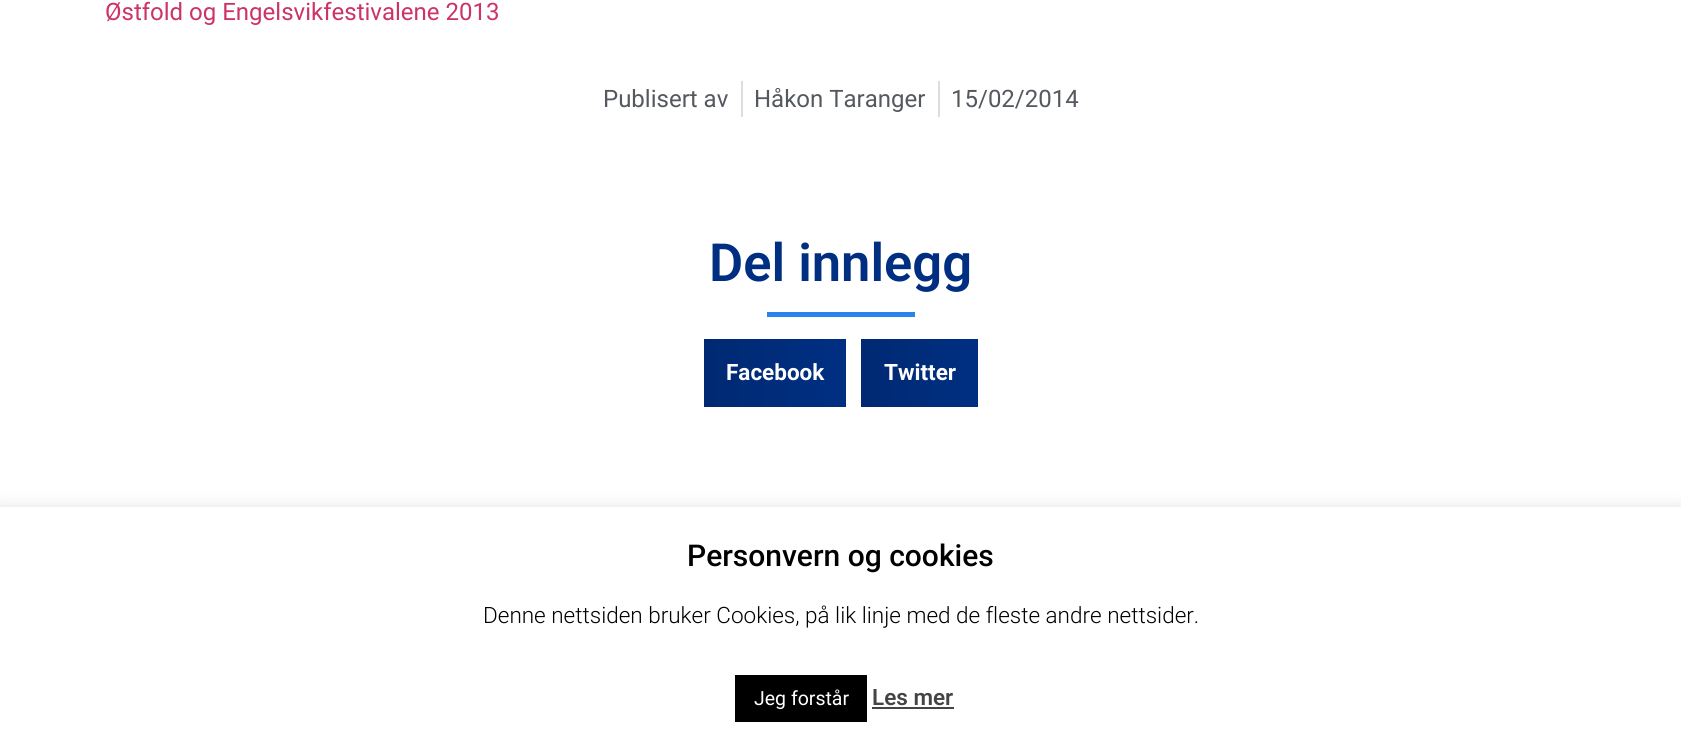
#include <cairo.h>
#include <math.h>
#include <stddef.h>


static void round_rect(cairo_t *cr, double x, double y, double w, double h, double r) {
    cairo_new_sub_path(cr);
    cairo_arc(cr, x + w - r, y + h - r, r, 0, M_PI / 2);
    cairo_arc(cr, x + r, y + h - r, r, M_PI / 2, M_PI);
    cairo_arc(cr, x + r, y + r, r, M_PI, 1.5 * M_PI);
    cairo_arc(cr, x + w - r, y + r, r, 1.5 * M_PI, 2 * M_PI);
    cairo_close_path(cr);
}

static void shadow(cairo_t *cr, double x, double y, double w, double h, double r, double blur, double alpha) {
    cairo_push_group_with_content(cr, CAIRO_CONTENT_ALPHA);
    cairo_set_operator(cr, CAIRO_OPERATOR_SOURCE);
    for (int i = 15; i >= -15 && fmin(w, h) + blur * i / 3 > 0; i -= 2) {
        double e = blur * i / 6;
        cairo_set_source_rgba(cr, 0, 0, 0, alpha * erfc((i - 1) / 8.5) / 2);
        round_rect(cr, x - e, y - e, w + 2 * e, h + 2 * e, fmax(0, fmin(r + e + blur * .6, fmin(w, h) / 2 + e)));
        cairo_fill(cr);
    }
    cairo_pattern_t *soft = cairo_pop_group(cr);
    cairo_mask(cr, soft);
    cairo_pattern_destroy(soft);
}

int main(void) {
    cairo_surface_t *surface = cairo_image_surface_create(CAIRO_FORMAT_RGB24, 1681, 739);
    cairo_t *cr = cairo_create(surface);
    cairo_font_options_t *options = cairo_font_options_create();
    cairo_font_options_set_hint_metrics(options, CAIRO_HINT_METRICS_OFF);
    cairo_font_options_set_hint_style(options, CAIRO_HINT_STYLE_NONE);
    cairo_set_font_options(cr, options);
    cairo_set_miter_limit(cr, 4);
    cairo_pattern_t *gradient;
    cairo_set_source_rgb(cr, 1, 1, 1);
    cairo_paint(cr);
    cairo_select_font_face(cr, "Roboto", CAIRO_FONT_SLANT_NORMAL, CAIRO_FONT_WEIGHT_NORMAL);
    cairo_set_font_size(cr, 24);
    cairo_set_source_rgb(cr, 0.8, 0.2, 0.4);
    cairo_move_to(cr, 105, 20);
    cairo_show_text(cr, "Østfold og Engelsvikfestivalene 2013");
    cairo_set_source_rgb(cr, 0.329, 0.349, 0.373);
    cairo_move_to(cr, 603, 107);
    cairo_show_text(cr, "Publisert av");
    cairo_set_source_rgb(cr, 0.867, 0.867, 0.867);
    cairo_rectangle(cr, 741, 81, 2, 36);
    cairo_fill(cr);
    cairo_set_source_rgb(cr, 0.329, 0.349, 0.373);
    cairo_move_to(cr, 754, 107);
    cairo_show_text(cr, "Håkon Taranger");
    cairo_set_source_rgb(cr, 0.867, 0.867, 0.867);
    cairo_rectangle(cr, 938, 81, 2, 36);
    cairo_fill(cr);
    cairo_set_source_rgb(cr, 0.329, 0.349, 0.373);
    cairo_move_to(cr, 951, 107);
    cairo_show_text(cr, "15/02/2014");
    cairo_select_font_face(cr, "Roboto SemiBold", CAIRO_FONT_SLANT_NORMAL, CAIRO_FONT_WEIGHT_NORMAL);
    cairo_set_font_size(cr, 52.5);
    cairo_set_source_rgb(cr, 0, 0.184, 0.51);
    cairo_move_to(cr, 709, 281);
    cairo_show_text(cr, "Del innlegg");
    cairo_set_source_rgb(cr, 0.165, 0.514, 0.929);
    cairo_rectangle(cr, 767, 312, 148, 5);
    cairo_fill(cr);
    gradient = cairo_pattern_create_linear(704, 373, 846, 373);
    cairo_pattern_add_color_stop_rgba(gradient, 0, 0, 0.161, 0.447, 1);
    cairo_pattern_add_color_stop_rgba(gradient, 1, 0, 0.184, 0.51, 1);
    cairo_set_source(cr, gradient);
    cairo_pattern_destroy(gradient);
    cairo_rectangle(cr, 704, 339, 142, 68);
    cairo_fill(cr);
    cairo_select_font_face(cr, "Roboto", CAIRO_FONT_SLANT_NORMAL, CAIRO_FONT_WEIGHT_BOLD);
    cairo_set_font_size(cr, 22.5);
    cairo_set_source_rgb(cr, 1, 1, 1);
    cairo_move_to(cr, 726, 380);
    cairo_show_text(cr, "Facebook");
    gradient = cairo_pattern_create_linear(861, 373, 978, 373);
    cairo_pattern_add_color_stop_rgba(gradient, 0, 0, 0.161, 0.447, 1);
    cairo_pattern_add_color_stop_rgba(gradient, 1, 0, 0.184, 0.51, 1);
    cairo_set_source(cr, gradient);
    cairo_pattern_destroy(gradient);
    cairo_rectangle(cr, 861, 339, 117, 68);
    cairo_fill(cr);
    cairo_set_source_rgb(cr, 1, 1, 1);
    cairo_move_to(cr, 884, 380);
    cairo_show_text(cr, "Twitter");
    cairo_set_source_rgb(cr, 0.675, 0.671, 0.671);
    shadow(cr, 0, 506, 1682, 232, 0, 7.5, 0.3);
    cairo_set_source_rgb(cr, 1, 1, 1);
    cairo_rectangle(cr, 0, 507, 1681, 232);
    cairo_fill(cr);
    cairo_select_font_face(cr, "Roboto Medium", CAIRO_FONT_SLANT_NORMAL, CAIRO_FONT_WEIGHT_NORMAL);
    cairo_set_font_size(cr, 30);
    cairo_set_source_rgb(cr, 0, 0, 0);
    cairo_move_to(cr, 687, 566);
    cairo_show_text(cr, "Personvern og cookies");
    cairo_select_font_face(cr, "Roboto Light", CAIRO_FONT_SLANT_NORMAL, CAIRO_FONT_WEIGHT_NORMAL);
    cairo_set_font_size(cr, 22.5);
    cairo_move_to(cr, 483, 623);
    cairo_show_text(cr, "Denne nettsiden bruker Cookies, på lik linje med de fleste andre nettsider.");
    cairo_rectangle(cr, 735, 675, 132, 47);
    cairo_fill(cr);
    cairo_select_font_face(cr, "Roboto", CAIRO_FONT_SLANT_NORMAL, CAIRO_FONT_WEIGHT_NORMAL);
    cairo_set_font_size(cr, 19.5);
    cairo_set_source_rgb(cr, 1, 1, 1);
    cairo_move_to(cr, 754, 705);
    cairo_show_text(cr, "Jeg forstår");
    cairo_select_font_face(cr, "Roboto SemiBold", CAIRO_FONT_SLANT_NORMAL, CAIRO_FONT_WEIGHT_NORMAL);
    cairo_set_font_size(cr, 22.5);
    cairo_set_source_rgb(cr, 0.267, 0.267, 0.267);
    cairo_move_to(cr, 872, 705);
    cairo_show_text(cr, "Les mer");
    cairo_rectangle(cr, 872, 707, 82, 2);
    cairo_fill(cr);
    cairo_surface_write_to_png(surface, "page.png");
    cairo_font_options_destroy(options);
    cairo_destroy(cr);
    cairo_surface_destroy(surface);
    return 0;
}
